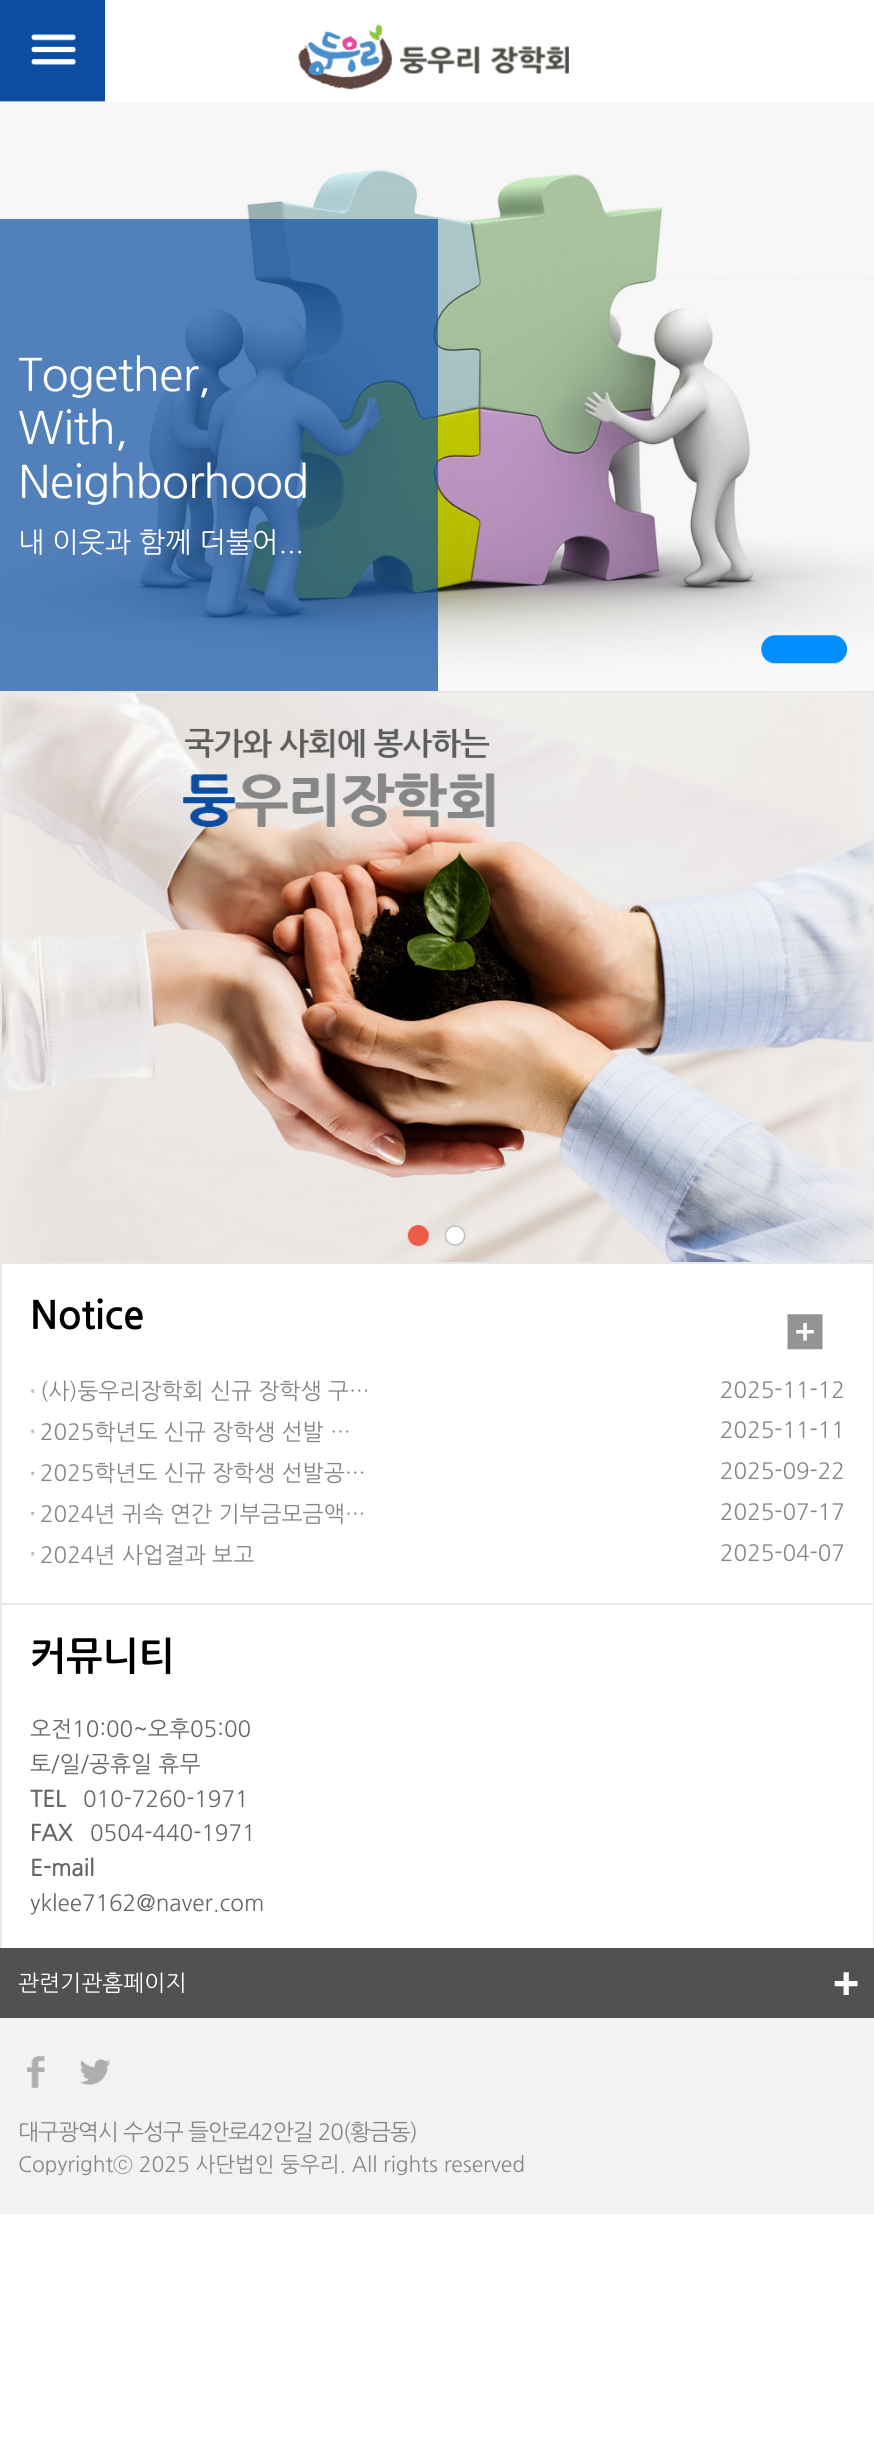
#include <cairo.h>
#include <math.h>
#include <stddef.h>


static void spaced_text(cairo_t *cr, double x, double y, const char *s, double letter, double word) {
    cairo_move_to(cr, x, y);
    while (*s) {
        char ch[5] = {0};
        int n = 0;
        do ch[n++] = *s++; while ((*s & 0xC0) == 0x80);
        cairo_show_text(cr, ch);
        cairo_rel_move_to(cr, letter + word * (*ch == ' '), 0);
    }
}

static void picture(cairo_t *cr, const char *path, double x, double y, double w, double h) {
    cairo_surface_t *image = cairo_image_surface_create_from_png(path);
    cairo_save(cr);
    cairo_set_source_surface(cr, image, x, y);
    cairo_rectangle(cr, x, y, w, h);
    cairo_fill(cr);
    cairo_restore(cr);
    cairo_surface_destroy(image);
}

int main(void) {
    cairo_surface_t *surface = cairo_image_surface_create(CAIRO_FORMAT_RGB24, 874, 2457);
    cairo_t *cr = cairo_create(surface);
    cairo_font_options_t *options = cairo_font_options_create();
    cairo_font_options_set_hint_metrics(options, CAIRO_HINT_METRICS_OFF);
    cairo_font_options_set_hint_style(options, CAIRO_HINT_STYLE_NONE);
    cairo_set_font_options(cr, options);
    cairo_set_miter_limit(cr, 4);
    cairo_set_source_rgb(cr, 1, 1, 1);
    cairo_paint(cr);
    picture(cr, "img1.png", 0, 0, 105, 102);
    picture(cr, "img2.png", 298, 24, 271, 66);
    picture(cr, "img3.png", 0, 101, 874, 590);
    cairo_set_source_rgba(cr, 0.047, 0.302, 0.635, 0.7);
    cairo_rectangle(cr, 0, 219, 438, 472);
    cairo_fill(cr);
    cairo_select_font_face(cr, "NanumGothic", CAIRO_FONT_SLANT_NORMAL, CAIRO_FONT_WEIGHT_NORMAL);
    cairo_set_font_size(cr, 44.75);
    cairo_set_source_rgb(cr, 1, 1, 1);
    spaced_text(cr, 18, 389, "Together,", -0.9, 0);
    spaced_text(cr, 18, 442, "With,", -0.9, 0);
    spaced_text(cr, 18, 496, "Neighborhood", -0.9, 0);
    cairo_set_font_size(cr, 28);
    cairo_move_to(cr, 18, 551);
    cairo_show_text(cr, "내 이웃과 함께 더불어...");
    picture(cr, "img4.png", 761, 635, 86, 29);
    cairo_rectangle(cr, 1, 1263, 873, 341);
    cairo_set_source_rgb(cr, 0.91, 0.91, 0.91);
    cairo_stroke(cr);
    cairo_rectangle(cr, 1, 692, 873, 571);
    cairo_stroke(cr);
    picture(cr, "img5.png", 2, 693, 871, 569);
    picture(cr, "img6.png", 407, 1225, 22, 21);
    picture(cr, "img7.png", 444, 1225, 22, 21);
    cairo_select_font_face(cr, "NanumGothic", CAIRO_FONT_SLANT_NORMAL, CAIRO_FONT_WEIGHT_BOLD);
    cairo_set_font_size(cr, 38.5);
    cairo_set_source_rgb(cr, 0, 0, 0);
    cairo_move_to(cr, 30, 1327);
    cairo_show_text(cr, "Notice");
    picture(cr, "img8.png", 787, 1314, 36, 36);
    picture(cr, "img9.png", 30, 1389, 5, 4);
    cairo_select_font_face(cr, "NanumGothic", CAIRO_FONT_SLANT_NORMAL, CAIRO_FONT_WEIGHT_NORMAL);
    cairo_set_font_size(cr, 22.4);
    cairo_set_source_rgb(cr, 0.525, 0.525, 0.525);
    cairo_move_to(cr, 40, 1398);
    cairo_show_text(cr, "(사)둥우리장학회 신규 장학생 구…");
    cairo_move_to(cr, 720, 1397);
    cairo_show_text(cr, "2025-11-12");
    picture(cr, "img10.png", 30, 1429, 5, 5);
    cairo_move_to(cr, 40, 1439);
    cairo_show_text(cr, "2025학년도 신규 장학생 선발 …");
    cairo_move_to(cr, 720, 1437);
    cairo_show_text(cr, "2025-11-11");
    picture(cr, "img10.png", 30, 1471, 5, 5);
    cairo_move_to(cr, 40, 1480);
    cairo_show_text(cr, "2025학년도 신규 장학생 선발공…");
    cairo_move_to(cr, 720, 1478);
    cairo_show_text(cr, "2025-09-22");
    picture(cr, "img11.png", 30, 1512, 5, 4);
    cairo_move_to(cr, 40, 1521);
    cairo_show_text(cr, "2024년 귀속 연간 기부금모금액…");
    cairo_move_to(cr, 720, 1519);
    cairo_show_text(cr, "2025-07-17");
    picture(cr, "img12.png", 30, 1552, 5, 4);
    cairo_move_to(cr, 40, 1562);
    cairo_show_text(cr, "2024년 사업결과 보고");
    cairo_move_to(cr, 720, 1560);
    cairo_show_text(cr, "2025-04-07");
    cairo_rectangle(cr, 1, 1604, 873, 345);
    cairo_set_source_rgb(cr, 0.91, 0.91, 0.91);
    cairo_stroke(cr);
    cairo_select_font_face(cr, "NanumGothic", CAIRO_FONT_SLANT_NORMAL, CAIRO_FONT_WEIGHT_BOLD);
    cairo_set_font_size(cr, 38.5);
    cairo_set_source_rgb(cr, 0, 0, 0);
    cairo_move_to(cr, 30, 1668);
    cairo_show_text(cr, "커뮤니티");
    cairo_select_font_face(cr, "NanumGothic", CAIRO_FONT_SLANT_NORMAL, CAIRO_FONT_WEIGHT_NORMAL);
    cairo_set_font_size(cr, 22.4);
    cairo_set_source_rgb(cr, 0.4, 0.4, 0.4);
    cairo_move_to(cr, 30, 1736);
    cairo_show_text(cr, "오전10:00~오후05:00");
    cairo_move_to(cr, 30, 1771);
    cairo_show_text(cr, "토/일/공휴일 휴무");
    cairo_select_font_face(cr, "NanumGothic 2", CAIRO_FONT_SLANT_NORMAL, CAIRO_FONT_WEIGHT_BOLD);
    cairo_move_to(cr, 30, 1806);
    cairo_show_text(cr, "TEL");
    cairo_select_font_face(cr, "NanumGothic", CAIRO_FONT_SLANT_NORMAL, CAIRO_FONT_WEIGHT_NORMAL);
    cairo_move_to(cr, 83, 1806);
    cairo_show_text(cr, "010-7260-1971");
    cairo_select_font_face(cr, "NanumGothic 2", CAIRO_FONT_SLANT_NORMAL, CAIRO_FONT_WEIGHT_BOLD);
    cairo_move_to(cr, 30, 1840);
    cairo_show_text(cr, "FAX");
    cairo_select_font_face(cr, "NanumGothic", CAIRO_FONT_SLANT_NORMAL, CAIRO_FONT_WEIGHT_NORMAL);
    cairo_move_to(cr, 90, 1840);
    cairo_show_text(cr, "0504-440-1971");
    cairo_select_font_face(cr, "NanumGothic 2", CAIRO_FONT_SLANT_NORMAL, CAIRO_FONT_WEIGHT_BOLD);
    cairo_move_to(cr, 30, 1875);
    cairo_show_text(cr, "E-mail");
    cairo_select_font_face(cr, "NanumGothic", CAIRO_FONT_SLANT_NORMAL, CAIRO_FONT_WEIGHT_NORMAL);
    cairo_move_to(cr, 30, 1910);
    cairo_show_text(cr, "yklee7162@naver.com");
    cairo_set_source_rgb(cr, 0.949, 0.949, 0.949);
    cairo_rectangle(cr, 0, 2018, 874, 196);
    cairo_fill(cr);
    cairo_set_source_rgb(cr, 0.318, 0.318, 0.318);
    cairo_rectangle(cr, 0, 1948, 874, 70);
    cairo_fill(cr);
    picture(cr, "img13.png", 834, 1972, 24, 23);
    cairo_set_source_rgb(cr, 1, 1, 1);
    cairo_move_to(cr, 18, 1990);
    cairo_show_text(cr, "관련기관홈페이지");
    picture(cr, "img14.png", 27, 2056, 18, 32);
    picture(cr, "img15.png", 80, 2059, 31, 26);
    cairo_set_source_rgb(cr, 0.525, 0.525, 0.525);
    spaced_text(cr, 18, 2139, "대구광역시 수성구 들안로42안길 20(황금동)", -1.1, 0);
    cairo_set_font_size(cr, 21);
    cairo_move_to(cr, 18, 2171);
    cairo_show_text(cr, "Copyrightⓒ 2025 사단법인 둥우리. All rights reserved");
    cairo_surface_write_to_png(surface, "page.png");
    cairo_font_options_destroy(options);
    cairo_destroy(cr);
    cairo_surface_destroy(surface);
    return 0;
}
